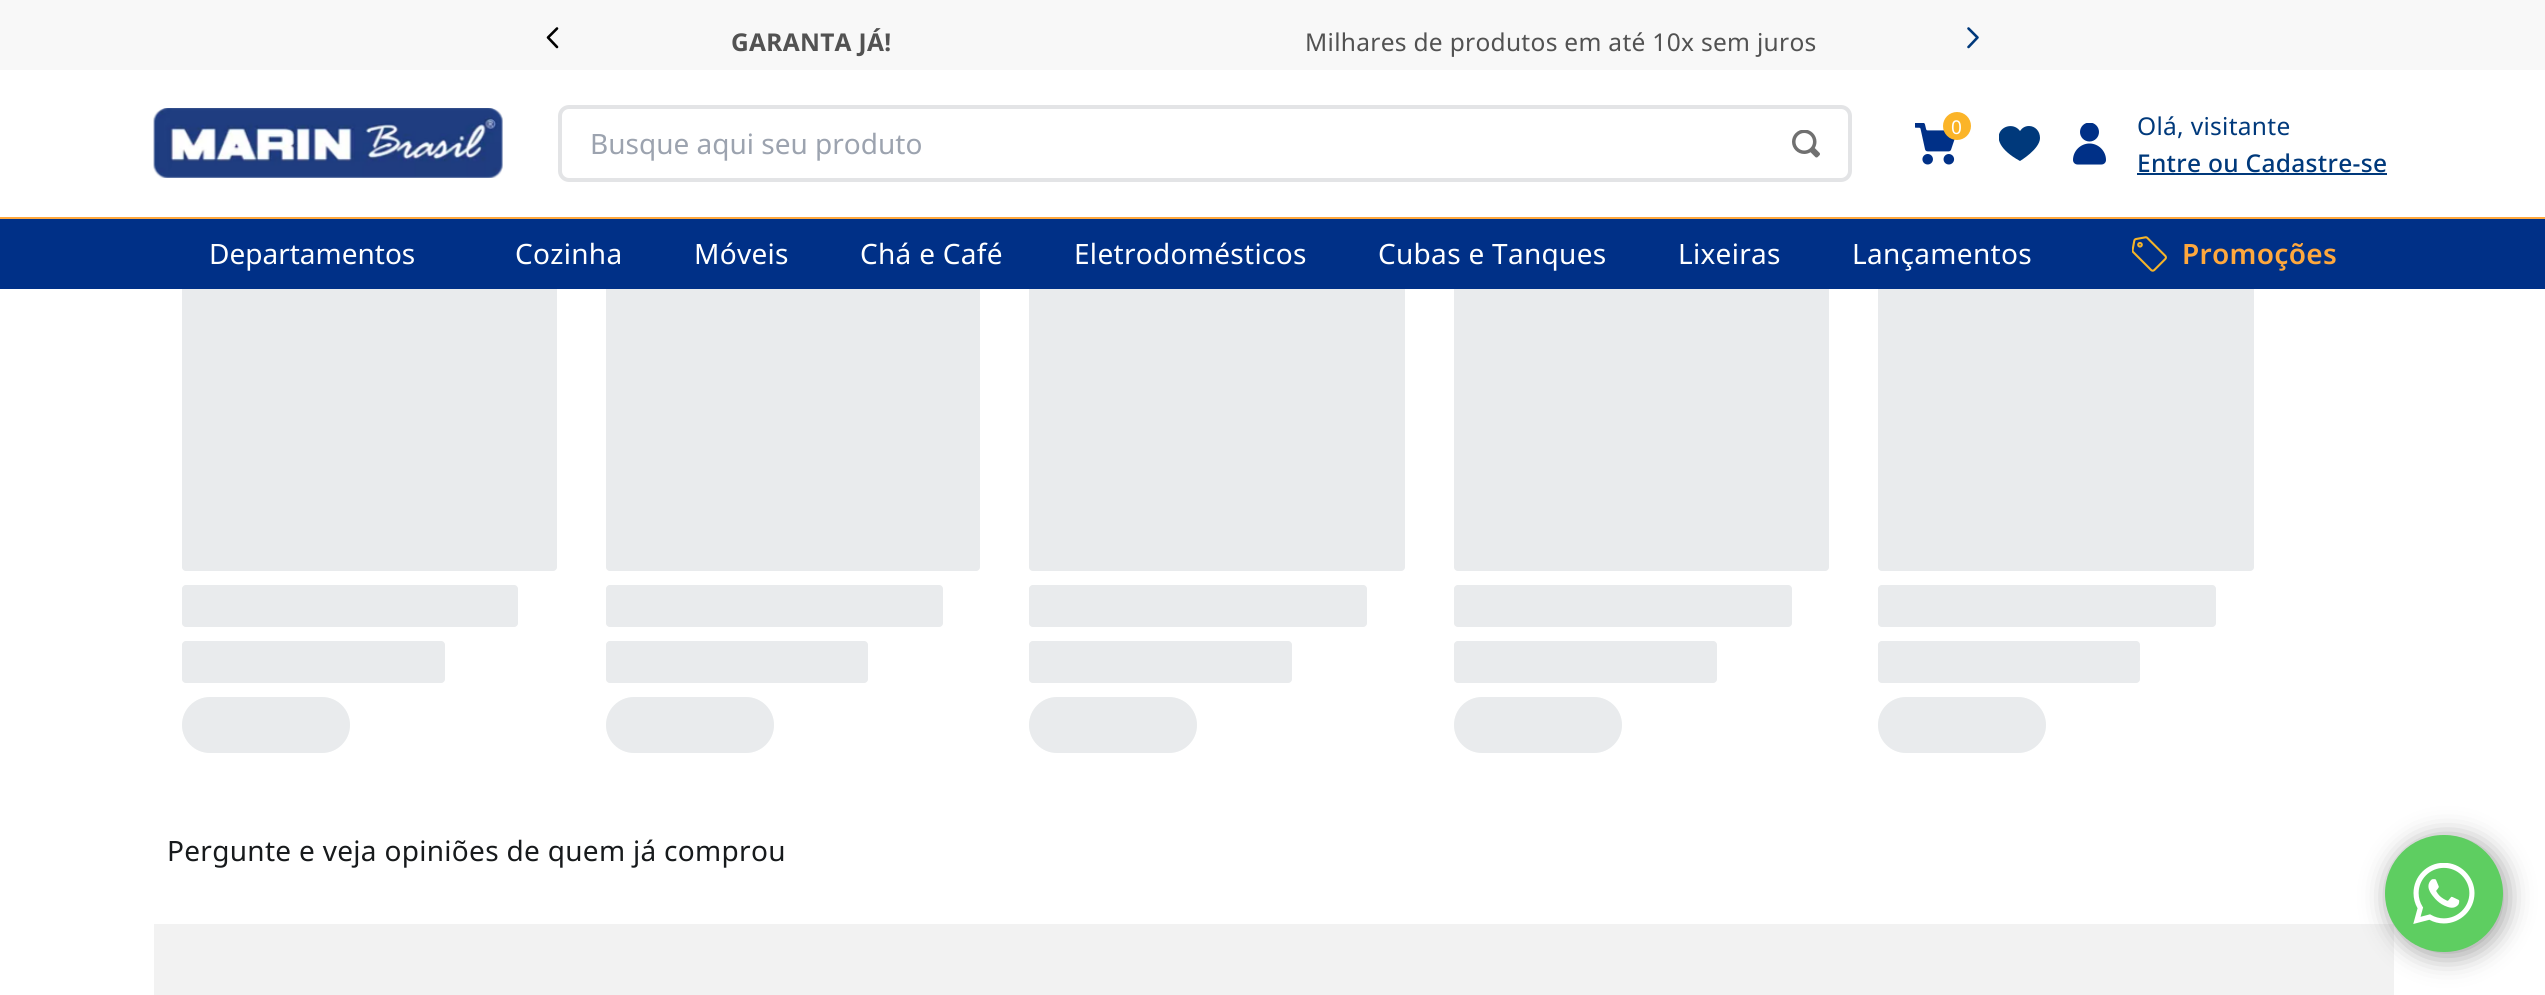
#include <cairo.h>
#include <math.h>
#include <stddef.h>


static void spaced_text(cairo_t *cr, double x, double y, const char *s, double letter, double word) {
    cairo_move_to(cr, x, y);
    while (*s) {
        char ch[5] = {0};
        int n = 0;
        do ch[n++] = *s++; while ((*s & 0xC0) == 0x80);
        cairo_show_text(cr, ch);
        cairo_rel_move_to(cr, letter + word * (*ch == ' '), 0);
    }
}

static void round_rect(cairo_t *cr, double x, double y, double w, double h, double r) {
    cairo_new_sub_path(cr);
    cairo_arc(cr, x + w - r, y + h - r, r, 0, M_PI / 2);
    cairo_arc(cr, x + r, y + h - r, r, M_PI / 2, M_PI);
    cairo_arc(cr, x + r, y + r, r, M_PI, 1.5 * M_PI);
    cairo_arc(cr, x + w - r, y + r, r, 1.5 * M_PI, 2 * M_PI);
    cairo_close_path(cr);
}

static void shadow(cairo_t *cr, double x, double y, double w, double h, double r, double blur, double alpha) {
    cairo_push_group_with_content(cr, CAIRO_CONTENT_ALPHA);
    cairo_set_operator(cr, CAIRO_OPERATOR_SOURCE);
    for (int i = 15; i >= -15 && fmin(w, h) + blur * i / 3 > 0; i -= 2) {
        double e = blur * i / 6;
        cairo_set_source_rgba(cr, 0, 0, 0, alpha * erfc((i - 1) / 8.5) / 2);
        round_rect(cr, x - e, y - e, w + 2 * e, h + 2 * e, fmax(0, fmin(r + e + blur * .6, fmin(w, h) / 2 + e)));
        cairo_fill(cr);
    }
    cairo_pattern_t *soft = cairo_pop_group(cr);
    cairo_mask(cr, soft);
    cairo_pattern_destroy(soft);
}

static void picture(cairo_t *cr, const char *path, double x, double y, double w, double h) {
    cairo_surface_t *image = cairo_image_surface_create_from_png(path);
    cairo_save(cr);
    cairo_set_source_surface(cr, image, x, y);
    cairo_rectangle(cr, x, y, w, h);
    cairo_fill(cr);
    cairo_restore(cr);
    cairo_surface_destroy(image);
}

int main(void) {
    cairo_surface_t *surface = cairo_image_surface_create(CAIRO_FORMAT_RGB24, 2545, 995);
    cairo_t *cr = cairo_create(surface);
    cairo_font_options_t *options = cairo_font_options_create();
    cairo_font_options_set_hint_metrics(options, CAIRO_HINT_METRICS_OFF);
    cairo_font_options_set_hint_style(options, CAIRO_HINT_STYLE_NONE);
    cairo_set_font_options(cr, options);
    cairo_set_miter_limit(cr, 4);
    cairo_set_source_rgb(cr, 1, 1, 1);
    cairo_paint(cr);
    cairo_set_source_rgb(cr, 0.969, 0.969, 0.969);
    cairo_rectangle(cr, 0, 0, 2545, 70);
    cairo_fill(cr);
    cairo_new_path(cr);
    cairo_move_to(cr, 557, 28.5);
    cairo_line_to(cr, 548, 37.5);
    cairo_line_to(cr, 557, 47);
    cairo_set_source_rgb(cr, 0, 0, 0);
    cairo_set_line_width(cr, 2.6);
    cairo_set_line_cap(cr, CAIRO_LINE_CAP_ROUND);
    cairo_set_line_join(cr, CAIRO_LINE_JOIN_ROUND);
    cairo_stroke(cr);
    cairo_select_font_face(cr, "Noto Sans", CAIRO_FONT_SLANT_NORMAL, CAIRO_FONT_WEIGHT_BOLD);
    cairo_set_font_size(cr, 24.5);
    cairo_set_source_rgb(cr, 0.322, 0.322, 0.322);
    spaced_text(cr, 731, 51, "GARANTA JÁ!", 0.3, 0);
    cairo_select_font_face(cr, "Noto Sans", CAIRO_FONT_SLANT_NORMAL, CAIRO_FONT_WEIGHT_NORMAL);
    spaced_text(cr, 1305, 51, "Milhares de produtos em até 10x sem juros", 0.3, 0);
    cairo_new_path(cr);
    cairo_move_to(cr, 1968.5, 47);
    cairo_line_to(cr, 1977.5, 37.5);
    cairo_line_to(cr, 1968.5, 28.5);
    cairo_set_source_rgb(cr, 0, 0.224, 0.482);
    cairo_stroke(cr);
    cairo_set_source_rgb(cr, 0.89, 0.902, 0.91);
    round_rect(cr, 182, 196, 375, 375, 4);
    cairo_fill(cr);
    cairo_set_source_rgba(cr, 1, 1, 1, 0.2);
    round_rect(cr, 182, 196, 375, 375, 4);
    cairo_fill(cr);
    cairo_set_source_rgb(cr, 0.89, 0.902, 0.91);
    round_rect(cr, 606, 196, 374, 375, 4);
    cairo_fill(cr);
    cairo_set_source_rgba(cr, 1, 1, 1, 0.2);
    round_rect(cr, 606, 196, 374, 375, 4);
    cairo_fill(cr);
    cairo_set_source_rgb(cr, 0.89, 0.902, 0.91);
    round_rect(cr, 1029, 196, 376, 375, 4);
    cairo_fill(cr);
    cairo_set_source_rgba(cr, 1, 1, 1, 0.2);
    round_rect(cr, 1029, 196, 376, 375, 4);
    cairo_fill(cr);
    cairo_set_source_rgb(cr, 0.89, 0.902, 0.91);
    round_rect(cr, 1454, 196, 375, 375, 4);
    cairo_fill(cr);
    cairo_set_source_rgba(cr, 1, 1, 1, 0.2);
    round_rect(cr, 1454, 196, 375, 375, 4);
    cairo_fill(cr);
    cairo_set_source_rgb(cr, 0.89, 0.902, 0.91);
    round_rect(cr, 1878, 196, 376, 375, 4);
    cairo_fill(cr);
    cairo_set_source_rgba(cr, 1, 1, 1, 0.2);
    round_rect(cr, 1878, 196, 376, 375, 4);
    cairo_fill(cr);
    cairo_set_source_rgb(cr, 1, 1, 1);
    cairo_rectangle(cr, 182, 196, 2072, 21);
    cairo_fill(cr);
    picture(cr, "img1.png", 153, 108, 350, 70);
    round_rect(cr, 560, 107, 1290, 73, 9);
    cairo_set_source_rgb(cr, 0.89, 0.894, 0.902);
    cairo_set_line_width(cr, 4);
    cairo_set_line_cap(cr, CAIRO_LINE_CAP_BUTT);
    cairo_set_line_join(cr, CAIRO_LINE_JOIN_MITER);
    cairo_stroke(cr);
    cairo_set_font_size(cr, 28);
    cairo_set_source_rgb(cr, 0.612, 0.639, 0.686);
    cairo_move_to(cr, 590, 154);
    cairo_show_text(cr, "Busque aqui seu produto");
    picture(cr, "img2.png", 1792, 130, 28, 28);
    picture(cr, "img3.png", 1915, 123, 40, 42);
    cairo_set_source_rgb(cr, 0.984, 0.706, 0.157);
    cairo_arc(cr, 1957, 126, 14, 0, 2 * M_PI);
    cairo_fill(cr);
    cairo_set_font_size(cr, 19);
    cairo_set_source_rgb(cr, 1, 1, 1);
    cairo_move_to(cr, 1951, 134);
    cairo_show_text(cr, "0");
    cairo_save(cr);
    cairo_rectangle(cr, 1999, 123, 42, 42);
    cairo_clip(cr);
    cairo_set_source_rgb(cr, 0, 0.224, 0.482);
    cairo_new_path(cr);
    cairo_move_to(cr, 2029, 126);
    cairo_curve_to(cr, 2035, 126, 2040, 131, 2040, 138);
    cairo_curve_to(cr, 2040, 149, 2020, 161, 2020, 161);
    cairo_curve_to(cr, 1978, 138, 2009, 116, 2020, 131);
    cairo_curve_to(cr, 2022, 128, 2025, 126, 2029, 126);
    cairo_close_path(cr);
    cairo_fill(cr);
    cairo_restore(cr);
    cairo_save(cr);
    cairo_rectangle(cr, 2069, 123, 42, 42);
    cairo_clip(cr);
    cairo_set_source_rgb(cr, 0, 0.188, 0.529);
    cairo_arc(cr, 2089.5, 132, 9.5, 0, 2 * M_PI);
    cairo_fill(cr);
    cairo_restore(cr);
    cairo_set_source_rgb(cr, 0, 0.188, 0.529);
    cairo_new_path(cr);
    cairo_move_to(cr, 2089.5, 143.5);
    cairo_curve_to(cr, 2080.5, 143.5, 2073, 151, 2073, 160);
    cairo_curve_to(cr, 2073, 162.5, 2075, 164.5, 2077.5, 164.5);
    cairo_line_to(cr, 2101.5, 164.5);
    cairo_curve_to(cr, 2104, 164.5, 2106, 162.5, 2106, 160);
    cairo_curve_to(cr, 2106, 151, 2098.5, 143.5, 2089.5, 143.5);
    cairo_close_path(cr);
    cairo_fill(cr);
    cairo_set_font_size(cr, 24.5);
    cairo_set_source_rgb(cr, 0, 0.224, 0.482);
    spaced_text(cr, 2137, 135, "Olá, visitante", 0.3, 0);
    cairo_select_font_face(cr, "Noto Sans Medium", CAIRO_FONT_SLANT_NORMAL, CAIRO_FONT_WEIGHT_NORMAL);
    spaced_text(cr, 2137, 172, "Entre ou Cadastre-se", 0.3, 0);
    cairo_rectangle(cr, 2137, 173, 250, 2);
    cairo_fill(cr);
    cairo_set_source_rgb(cr, 0, 0.188, 0.529);
    cairo_rectangle(cr, 0, 219, 2545, 70);
    cairo_fill(cr);
    cairo_set_source_rgb(cr, 1, 0.659, 0.239);
    cairo_rectangle(cr, 0, 217, 2545, 2);
    cairo_fill(cr);
    cairo_select_font_face(cr, "Noto Sans", CAIRO_FONT_SLANT_NORMAL, CAIRO_FONT_WEIGHT_NORMAL);
    cairo_set_font_size(cr, 28);
    cairo_set_source_rgb(cr, 1, 1, 1);
    cairo_move_to(cr, 209, 264);
    cairo_show_text(cr, "Departamentos");
    spaced_text(cr, 515, 264, "Cozinha", 0.3, 0);
    spaced_text(cr, 694, 264, "Móveis", 0.3, 0);
    spaced_text(cr, 860, 264, "Chá e Café", 0.3, 0);
    spaced_text(cr, 1074, 264, "Eletrodomésticos", 0.3, 0);
    spaced_text(cr, 1378, 264, "Cubas e Tanques", 0.3, 0);
    spaced_text(cr, 1678, 264, "Lixeiras", 0.3, 0);
    spaced_text(cr, 1852, 264, "Lançamentos", 0.3, 0);
    picture(cr, "img4.png", 2132, 236, 35, 36);
    cairo_select_font_face(cr, "Noto Sans SemiBold", CAIRO_FONT_SLANT_NORMAL, CAIRO_FONT_WEIGHT_NORMAL);
    cairo_set_source_rgb(cr, 1, 0.659, 0.239);
    spaced_text(cr, 2182, 264, "Promoções", 0.3, 0);
    cairo_set_source_rgb(cr, 0.89, 0.902, 0.91);
    round_rect(cr, 182, 585, 336, 42, 4);
    cairo_fill(cr);
    cairo_set_source_rgba(cr, 1, 1, 1, 0.2);
    round_rect(cr, 182, 585, 336, 42, 4);
    cairo_fill(cr);
    cairo_set_source_rgb(cr, 0.89, 0.902, 0.91);
    round_rect(cr, 182, 641, 263, 42, 4);
    cairo_fill(cr);
    cairo_set_source_rgba(cr, 1, 1, 1, 0.2);
    round_rect(cr, 182, 641, 263, 42, 4);
    cairo_fill(cr);
    cairo_set_source_rgb(cr, 0.89, 0.902, 0.91);
    round_rect(cr, 182, 697, 168, 56, 28);
    cairo_fill(cr);
    cairo_set_source_rgba(cr, 1, 1, 1, 0.2);
    round_rect(cr, 182, 697, 168, 56, 28);
    cairo_fill(cr);
    cairo_set_source_rgb(cr, 0.89, 0.902, 0.91);
    round_rect(cr, 606, 585, 337, 42, 4);
    cairo_fill(cr);
    cairo_set_source_rgba(cr, 1, 1, 1, 0.2);
    round_rect(cr, 606, 585, 337, 42, 4);
    cairo_fill(cr);
    cairo_set_source_rgb(cr, 0.89, 0.902, 0.91);
    round_rect(cr, 606, 641, 262, 42, 4);
    cairo_fill(cr);
    cairo_set_source_rgba(cr, 1, 1, 1, 0.2);
    round_rect(cr, 606, 641, 262, 42, 4);
    cairo_fill(cr);
    cairo_set_source_rgb(cr, 0.89, 0.902, 0.91);
    round_rect(cr, 606, 697, 168, 56, 28);
    cairo_fill(cr);
    cairo_set_source_rgba(cr, 1, 1, 1, 0.2);
    round_rect(cr, 606, 697, 168, 56, 28);
    cairo_fill(cr);
    cairo_set_source_rgb(cr, 0.89, 0.902, 0.91);
    round_rect(cr, 1029, 585, 338, 42, 4);
    cairo_fill(cr);
    cairo_set_source_rgba(cr, 1, 1, 1, 0.2);
    round_rect(cr, 1029, 585, 338, 42, 4);
    cairo_fill(cr);
    cairo_set_source_rgb(cr, 0.89, 0.902, 0.91);
    round_rect(cr, 1029, 641, 263, 42, 4);
    cairo_fill(cr);
    cairo_set_source_rgba(cr, 1, 1, 1, 0.2);
    round_rect(cr, 1029, 641, 263, 42, 4);
    cairo_fill(cr);
    cairo_set_source_rgb(cr, 0.89, 0.902, 0.91);
    round_rect(cr, 1029, 697, 168, 56, 28);
    cairo_fill(cr);
    cairo_set_source_rgba(cr, 1, 1, 1, 0.2);
    round_rect(cr, 1029, 697, 168, 56, 28);
    cairo_fill(cr);
    cairo_set_source_rgb(cr, 0.89, 0.902, 0.91);
    round_rect(cr, 1454, 585, 338, 42, 4);
    cairo_fill(cr);
    cairo_set_source_rgba(cr, 1, 1, 1, 0.2);
    round_rect(cr, 1454, 585, 338, 42, 4);
    cairo_fill(cr);
    cairo_set_source_rgb(cr, 0.89, 0.902, 0.91);
    round_rect(cr, 1454, 641, 263, 42, 4);
    cairo_fill(cr);
    cairo_set_source_rgba(cr, 1, 1, 1, 0.2);
    round_rect(cr, 1454, 641, 263, 42, 4);
    cairo_fill(cr);
    cairo_set_source_rgb(cr, 0.89, 0.902, 0.91);
    round_rect(cr, 1454, 697, 168, 56, 28);
    cairo_fill(cr);
    cairo_set_source_rgba(cr, 1, 1, 1, 0.2);
    round_rect(cr, 1454, 697, 168, 56, 28);
    cairo_fill(cr);
    cairo_set_source_rgb(cr, 0.89, 0.902, 0.91);
    round_rect(cr, 1878, 585, 338, 42, 4);
    cairo_fill(cr);
    cairo_set_source_rgba(cr, 1, 1, 1, 0.2);
    round_rect(cr, 1878, 585, 338, 42, 4);
    cairo_fill(cr);
    cairo_set_source_rgb(cr, 0.89, 0.902, 0.91);
    round_rect(cr, 1878, 641, 262, 42, 4);
    cairo_fill(cr);
    cairo_set_source_rgba(cr, 1, 1, 1, 0.2);
    round_rect(cr, 1878, 641, 262, 42, 4);
    cairo_fill(cr);
    cairo_set_source_rgb(cr, 0.89, 0.902, 0.91);
    round_rect(cr, 1878, 697, 168, 56, 28);
    cairo_fill(cr);
    cairo_set_source_rgba(cr, 1, 1, 1, 0.2);
    round_rect(cr, 1878, 697, 168, 56, 28);
    cairo_fill(cr);
    cairo_select_font_face(cr, "Noto Sans", CAIRO_FONT_SLANT_NORMAL, CAIRO_FONT_WEIGHT_NORMAL);
    cairo_set_source_rgb(cr, 0.09, 0.102, 0.11);
    spaced_text(cr, 167, 861, "Pergunte e veja opiniões de quem já comprou", 0.3, 0);
    cairo_set_source_rgb(cr, 0.949, 0.949, 0.949);
    cairo_rectangle(cr, 154, 924, 2240, 71);
    cairo_fill(cr);
    cairo_set_source_rgb(cr, 0.6, 0.6, 0.6);
    shadow(cr, 2389, 838, 117, 118, 58.5, 13, 1);
    cairo_set_source_rgb(cr, 0.369, 0.808, 0.38);
    round_rect(cr, 2385, 835, 118, 117, 58.5);
    cairo_fill(cr);
    picture(cr, "img5.png", 2413, 863, 62, 61);
    cairo_surface_write_to_png(surface, "page.png");
    cairo_font_options_destroy(options);
    cairo_destroy(cr);
    cairo_surface_destroy(surface);
    return 0;
}
